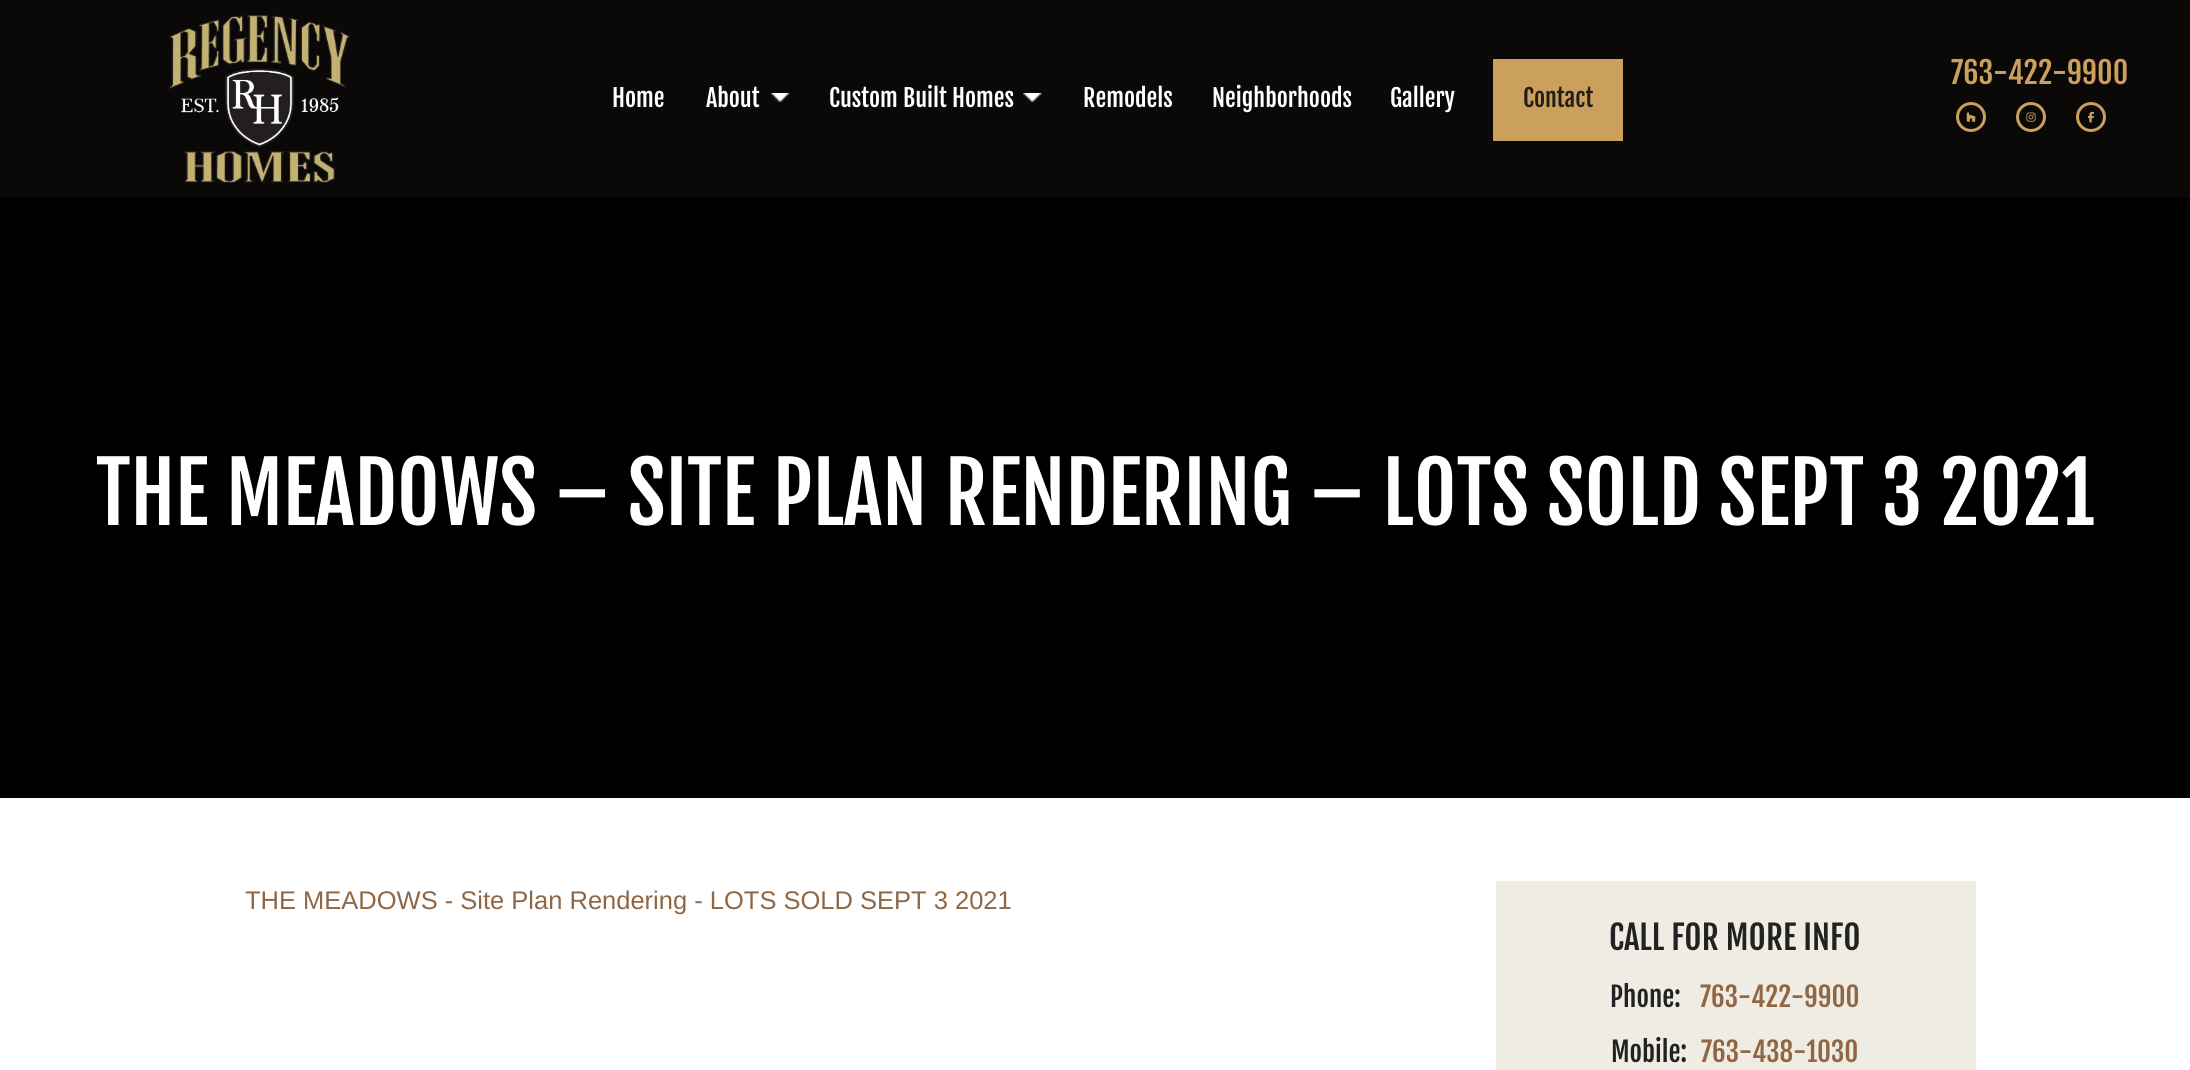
#include <cairo.h>
#include <math.h>
#include <stddef.h>


static void picture(cairo_t *cr, const char *path, double x, double y, double w, double h) {
    cairo_surface_t *image = cairo_image_surface_create_from_png(path);
    cairo_save(cr);
    cairo_set_source_surface(cr, image, x, y);
    cairo_rectangle(cr, x, y, w, h);
    cairo_fill(cr);
    cairo_restore(cr);
    cairo_surface_destroy(image);
}

int main(void) {
    cairo_surface_t *surface = cairo_image_surface_create(CAIRO_FORMAT_RGB24, 2190, 1070);
    cairo_t *cr = cairo_create(surface);
    cairo_font_options_t *options = cairo_font_options_create();
    cairo_font_options_set_hint_metrics(options, CAIRO_HINT_METRICS_OFF);
    cairo_font_options_set_hint_style(options, CAIRO_HINT_STYLE_NONE);
    cairo_set_font_options(cr, options);
    cairo_set_miter_limit(cr, 4);
    cairo_set_source_rgb(cr, 1, 1, 1);
    cairo_paint(cr);
    cairo_set_source_rgb(cr, 0.043, 0.039, 0.035);
    cairo_rectangle(cr, 0, 0, 2190, 198);
    cairo_fill(cr);
    picture(cr, "img1.png", 169, 15, 181, 168);
    cairo_select_font_face(cr, "Fjalla One", CAIRO_FONT_SLANT_NORMAL, CAIRO_FONT_WEIGHT_NORMAL);
    cairo_set_font_size(cr, 30);
    cairo_set_source_rgb(cr, 0.792, 0.627, 0.361);
    cairo_move_to(cr, 1951, 84);
    cairo_show_text(cr, "763-422-9900");
    cairo_new_path(cr);
    cairo_arc(cr, 1971, 117, 13.5, 0, 2 * M_PI);
    cairo_set_line_width(cr, 3);
    cairo_stroke(cr);
    picture(cr, "img2.png", 1966, 112, 10, 10);
    cairo_arc(cr, 2031, 117, 13.5, 0, 2 * M_PI);
    cairo_stroke(cr);
    picture(cr, "img3.png", 2026, 112, 10, 10);
    cairo_arc(cr, 2091, 117, 13.5, 0, 2 * M_PI);
    cairo_stroke(cr);
    picture(cr, "img4.png", 2088, 111, 6, 12);
    cairo_set_font_size(cr, 24);
    cairo_set_source_rgb(cr, 1, 1, 1);
    cairo_move_to(cr, 612, 107);
    cairo_show_text(cr, "Home");
    cairo_move_to(cr, 706, 107);
    cairo_show_text(cr, "About");
    picture(cr, "img5.png", 771, 93, 18, 9);
    cairo_move_to(cr, 829, 107);
    cairo_show_text(cr, "Custom Built Homes");
    picture(cr, "img6.png", 1023, 93, 19, 9);
    cairo_move_to(cr, 1083, 107);
    cairo_show_text(cr, "Remodels");
    cairo_move_to(cr, 1212, 107);
    cairo_show_text(cr, "Neighborhoods");
    cairo_move_to(cr, 1390, 107);
    cairo_show_text(cr, "Gallery");
    cairo_set_source_rgb(cr, 0.792, 0.627, 0.361);
    cairo_rectangle(cr, 1493, 59, 130, 82);
    cairo_fill(cr);
    cairo_set_source_rgb(cr, 0.133, 0.118, 0.09);
    cairo_move_to(cr, 1523, 107);
    cairo_show_text(cr, "Contact");
    cairo_set_source_rgb(cr, 0, 0, 0);
    cairo_rectangle(cr, 0, 198, 2190, 600);
    cairo_fill(cr);
    cairo_set_font_size(cr, 82.5);
    cairo_set_source_rgb(cr, 1, 1, 1);
    cairo_move_to(cr, 96, 525);
    cairo_show_text(cr, "THE MEADOWS – SITE PLAN RENDERING – LOTS SOLD SEPT 3 2021");
    cairo_select_font_face(cr, "Liberation Sans", CAIRO_FONT_SLANT_NORMAL, CAIRO_FONT_WEIGHT_NORMAL);
    cairo_set_font_size(cr, 25.5);
    cairo_set_source_rgb(cr, 0.565, 0.404, 0.267);
    cairo_move_to(cr, 245, 909);
    cairo_show_text(cr, "THE MEADOWS - Site Plan Rendering - LOTS SOLD SEPT 3 2021");
    cairo_set_source_rgb(cr, 0.937, 0.922, 0.894);
    cairo_rectangle(cr, 1496, 881, 480, 189);
    cairo_fill(cr);
    cairo_select_font_face(cr, "Fjalla One", CAIRO_FONT_SLANT_NORMAL, CAIRO_FONT_WEIGHT_NORMAL);
    cairo_set_font_size(cr, 33);
    cairo_set_source_rgb(cr, 0.133, 0.133, 0.133);
    cairo_move_to(cr, 1609, 950);
    cairo_show_text(cr, "CALL FOR MORE INFO");
    cairo_set_font_size(cr, 27);
    cairo_move_to(cr, 1610, 1007);
    cairo_show_text(cr, "Phone:");
    cairo_set_source_rgb(cr, 0.565, 0.404, 0.267);
    cairo_move_to(cr, 1700, 1007);
    cairo_show_text(cr, "763-422-9900");
    cairo_set_source_rgb(cr, 0.133, 0.133, 0.133);
    cairo_move_to(cr, 1611, 1062);
    cairo_show_text(cr, "Mobile:");
    cairo_set_source_rgb(cr, 0.565, 0.404, 0.267);
    cairo_move_to(cr, 1701, 1062);
    cairo_show_text(cr, "763-438-1030");
    cairo_surface_write_to_png(surface, "page.png");
    cairo_font_options_destroy(options);
    cairo_destroy(cr);
    cairo_surface_destroy(surface);
    return 0;
}
